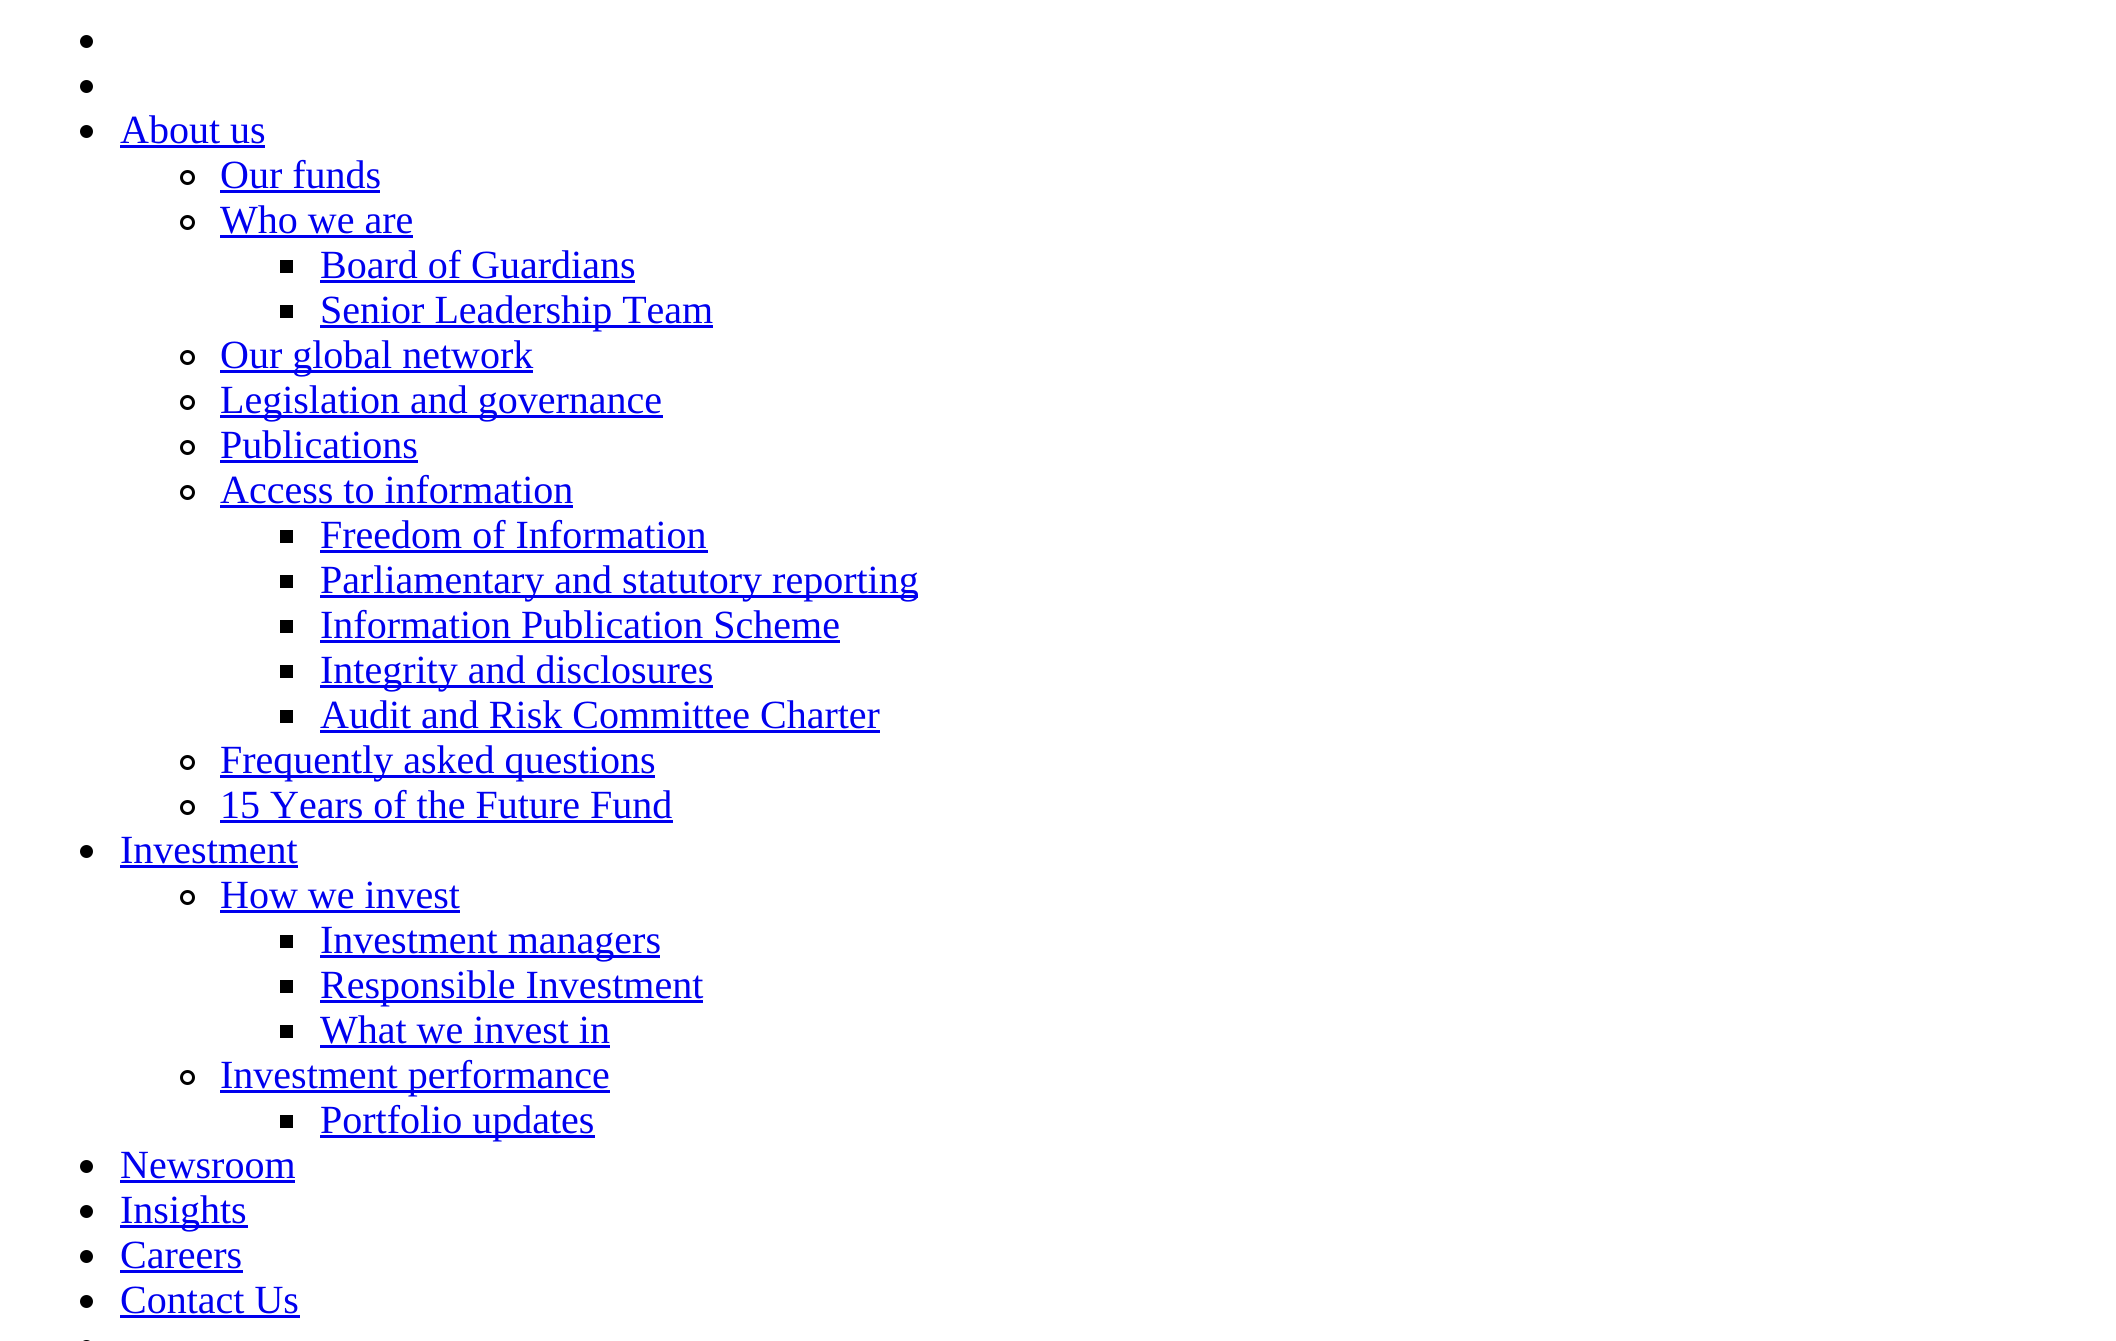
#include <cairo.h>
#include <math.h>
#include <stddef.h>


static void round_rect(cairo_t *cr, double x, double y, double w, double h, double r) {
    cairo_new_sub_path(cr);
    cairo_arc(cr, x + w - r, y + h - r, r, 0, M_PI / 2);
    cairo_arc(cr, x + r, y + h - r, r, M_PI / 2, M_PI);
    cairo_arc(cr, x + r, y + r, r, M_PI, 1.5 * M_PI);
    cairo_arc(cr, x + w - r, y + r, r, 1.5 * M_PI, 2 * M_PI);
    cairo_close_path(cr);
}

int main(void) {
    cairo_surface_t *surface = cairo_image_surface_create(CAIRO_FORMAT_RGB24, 2116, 1341);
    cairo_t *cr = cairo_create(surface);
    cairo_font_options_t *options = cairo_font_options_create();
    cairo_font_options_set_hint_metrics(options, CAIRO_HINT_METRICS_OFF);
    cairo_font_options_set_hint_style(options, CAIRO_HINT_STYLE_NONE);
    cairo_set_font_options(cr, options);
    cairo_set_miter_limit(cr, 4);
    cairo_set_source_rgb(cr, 1, 1, 1);
    cairo_paint(cr);
    cairo_set_source_rgb(cr, 0, 0, 0);
    cairo_arc(cr, 86.5, 41.5, 6.5, 0, 2 * M_PI);
    cairo_fill(cr);
    cairo_arc(cr, 86.5, 86.5, 6.5, 0, 2 * M_PI);
    cairo_fill(cr);
    cairo_arc(cr, 86.5, 131.5, 6.5, 0, 2 * M_PI);
    cairo_fill(cr);
    cairo_select_font_face(cr, "Liberation Serif", CAIRO_FONT_SLANT_NORMAL, CAIRO_FONT_WEIGHT_NORMAL);
    cairo_set_font_size(cr, 40);
    cairo_set_source_rgb(cr, 0, 0, 0.933);
    cairo_move_to(cr, 120, 143);
    cairo_show_text(cr, "About us");
    cairo_rectangle(cr, 120, 145, 145, 3);
    cairo_fill(cr);
    cairo_arc(cr, 187.5, 177.5, 6, 0, 2 * M_PI);
    cairo_set_source_rgb(cr, 0, 0, 0);
    cairo_set_line_width(cr, 3);
    cairo_stroke(cr);
    cairo_set_source_rgb(cr, 0, 0, 0.933);
    cairo_move_to(cr, 220, 188);
    cairo_show_text(cr, "Our funds");
    cairo_rectangle(cr, 220, 190, 160, 3);
    cairo_fill(cr);
    cairo_arc(cr, 187.5, 222.5, 6, 0, 2 * M_PI);
    cairo_set_source_rgb(cr, 0, 0, 0);
    cairo_stroke(cr);
    cairo_set_source_rgb(cr, 0, 0, 0.933);
    cairo_move_to(cr, 220, 233);
    cairo_show_text(cr, "Who we are");
    cairo_rectangle(cr, 220, 235, 193, 3);
    cairo_fill(cr);
    cairo_set_source_rgb(cr, 0, 0, 0);
    cairo_rectangle(cr, 280, 260, 13, 13);
    cairo_fill(cr);
    cairo_set_source_rgb(cr, 0, 0, 0.933);
    cairo_move_to(cr, 320, 278);
    cairo_show_text(cr, "Board of Guardians");
    cairo_rectangle(cr, 320, 280, 315, 3);
    cairo_fill(cr);
    cairo_set_source_rgb(cr, 0, 0, 0);
    cairo_rectangle(cr, 280, 305, 13, 13);
    cairo_fill(cr);
    cairo_set_source_rgb(cr, 0, 0, 0.933);
    cairo_rectangle(cr, 320, 325, 393, 3);
    cairo_fill(cr);
    cairo_move_to(cr, 320, 323);
    cairo_show_text(cr, "Senior Leadership Team");
    cairo_new_path(cr);
    cairo_arc(cr, 187.5, 357.5, 6, 0, 2 * M_PI);
    cairo_set_source_rgb(cr, 0, 0, 0);
    cairo_stroke(cr);
    cairo_set_source_rgb(cr, 0, 0, 0.933);
    cairo_rectangle(cr, 220, 370, 313, 3);
    cairo_fill(cr);
    cairo_move_to(cr, 220, 368);
    cairo_show_text(cr, "Our global network");
    cairo_new_path(cr);
    cairo_arc(cr, 187.5, 402.5, 6, 0, 2 * M_PI);
    cairo_set_source_rgb(cr, 0, 0, 0);
    cairo_stroke(cr);
    cairo_set_source_rgb(cr, 0, 0, 0.933);
    cairo_rectangle(cr, 220, 415, 443, 3);
    cairo_fill(cr);
    cairo_move_to(cr, 220, 413);
    cairo_show_text(cr, "Legislation and governance");
    cairo_new_path(cr);
    cairo_arc(cr, 187.5, 447.5, 6, 0, 2 * M_PI);
    cairo_set_source_rgb(cr, 0, 0, 0);
    cairo_stroke(cr);
    cairo_set_source_rgb(cr, 0, 0, 0.933);
    cairo_move_to(cr, 220, 458);
    cairo_show_text(cr, "Publications");
    cairo_rectangle(cr, 220, 460, 198, 3);
    cairo_fill(cr);
    cairo_arc(cr, 187.5, 492.5, 6, 0, 2 * M_PI);
    cairo_set_source_rgb(cr, 0, 0, 0);
    cairo_stroke(cr);
    cairo_set_source_rgb(cr, 0, 0, 0.933);
    cairo_move_to(cr, 220, 503);
    cairo_show_text(cr, "Access to information");
    cairo_rectangle(cr, 220, 505, 353, 3);
    cairo_fill(cr);
    cairo_set_source_rgb(cr, 0, 0, 0);
    cairo_rectangle(cr, 280, 530, 13, 13);
    cairo_fill(cr);
    cairo_set_source_rgb(cr, 0, 0, 0.933);
    cairo_move_to(cr, 320, 548);
    cairo_show_text(cr, "Freedom of Information");
    cairo_rectangle(cr, 320, 550, 388, 3);
    cairo_fill(cr);
    cairo_set_source_rgb(cr, 0, 0, 0);
    cairo_rectangle(cr, 280, 575, 13, 13);
    cairo_fill(cr);
    cairo_set_source_rgb(cr, 0, 0, 0.933);
    cairo_rectangle(cr, 320, 595, 598, 3);
    cairo_fill(cr);
    cairo_move_to(cr, 320, 593);
    cairo_show_text(cr, "Parliamentary and statutory reporting");
    cairo_set_source_rgb(cr, 0, 0, 0);
    cairo_rectangle(cr, 280, 620, 13, 13);
    cairo_fill(cr);
    cairo_set_source_rgb(cr, 0, 0, 0.933);
    cairo_move_to(cr, 320, 638);
    cairo_show_text(cr, "Information Publication Scheme");
    cairo_rectangle(cr, 320, 640, 520, 3);
    cairo_fill(cr);
    cairo_set_source_rgb(cr, 0, 0, 0);
    cairo_rectangle(cr, 280, 665, 13, 13);
    cairo_fill(cr);
    cairo_set_source_rgb(cr, 0, 0, 0.933);
    cairo_rectangle(cr, 320, 685, 393, 3);
    cairo_fill(cr);
    cairo_move_to(cr, 320, 683);
    cairo_show_text(cr, "Integrity and disclosures");
    cairo_set_source_rgb(cr, 0, 0, 0);
    cairo_rectangle(cr, 280, 710, 13, 13);
    cairo_fill(cr);
    cairo_set_source_rgb(cr, 0, 0, 0.933);
    cairo_move_to(cr, 320, 728);
    cairo_show_text(cr, "Audit and Risk Committee Charter");
    cairo_rectangle(cr, 320, 730, 560, 3);
    cairo_fill(cr);
    cairo_arc(cr, 187.5, 762.5, 6, 0, 2 * M_PI);
    cairo_set_source_rgb(cr, 0, 0, 0);
    cairo_stroke(cr);
    cairo_set_source_rgb(cr, 0, 0, 0.933);
    cairo_rectangle(cr, 220, 775, 435, 3);
    cairo_fill(cr);
    cairo_move_to(cr, 220, 773);
    cairo_show_text(cr, "Frequently asked questions");
    cairo_new_path(cr);
    cairo_arc(cr, 187.5, 807.5, 6, 0, 2 * M_PI);
    cairo_set_source_rgb(cr, 0, 0, 0);
    cairo_stroke(cr);
    cairo_set_source_rgb(cr, 0, 0, 0.933);
    cairo_move_to(cr, 220, 818);
    cairo_show_text(cr, "15 Years of the Future Fund");
    cairo_rectangle(cr, 220, 820, 453, 3);
    cairo_fill(cr);
    cairo_set_source_rgb(cr, 0, 0, 0);
    cairo_arc(cr, 86.5, 851.5, 6.5, 0, 2 * M_PI);
    cairo_fill(cr);
    cairo_set_source_rgb(cr, 0, 0, 0.933);
    cairo_move_to(cr, 120, 863);
    cairo_show_text(cr, "Investment");
    cairo_rectangle(cr, 120, 865, 178, 3);
    cairo_fill(cr);
    cairo_arc(cr, 187.5, 897.5, 6, 0, 2 * M_PI);
    cairo_set_source_rgb(cr, 0, 0, 0);
    cairo_stroke(cr);
    cairo_set_source_rgb(cr, 0, 0, 0.933);
    cairo_move_to(cr, 220, 908);
    cairo_show_text(cr, "How we invest");
    cairo_rectangle(cr, 220, 910, 240, 3);
    cairo_fill(cr);
    cairo_set_source_rgb(cr, 0, 0, 0);
    cairo_rectangle(cr, 280, 935, 13, 13);
    cairo_fill(cr);
    cairo_set_source_rgb(cr, 0, 0, 0.933);
    cairo_rectangle(cr, 320, 955, 340, 3);
    cairo_fill(cr);
    cairo_move_to(cr, 320, 953);
    cairo_show_text(cr, "Investment managers");
    cairo_set_source_rgb(cr, 0, 0, 0);
    cairo_rectangle(cr, 280, 980, 13, 13);
    cairo_fill(cr);
    cairo_set_source_rgb(cr, 0, 0, 0.933);
    cairo_rectangle(cr, 320, 1000, 383, 3);
    cairo_fill(cr);
    cairo_move_to(cr, 320, 998);
    cairo_show_text(cr, "Responsible Investment");
    cairo_set_source_rgb(cr, 0, 0, 0);
    cairo_rectangle(cr, 280, 1025, 13, 13);
    cairo_fill(cr);
    cairo_set_source_rgb(cr, 0, 0, 0.933);
    cairo_move_to(cr, 320, 1043);
    cairo_show_text(cr, "What we invest in");
    cairo_rectangle(cr, 320, 1045, 290, 3);
    cairo_fill(cr);
    cairo_arc(cr, 187.5, 1077.5, 6, 0, 2 * M_PI);
    cairo_set_source_rgb(cr, 0, 0, 0);
    cairo_stroke(cr);
    cairo_set_source_rgb(cr, 0, 0, 0.933);
    cairo_rectangle(cr, 220, 1090, 390, 3);
    cairo_fill(cr);
    cairo_move_to(cr, 220, 1088);
    cairo_show_text(cr, "Investment performance");
    cairo_set_source_rgb(cr, 0, 0, 0);
    cairo_rectangle(cr, 280, 1115, 13, 13);
    cairo_fill(cr);
    cairo_set_source_rgb(cr, 0, 0, 0.933);
    cairo_rectangle(cr, 320, 1135, 275, 3);
    cairo_fill(cr);
    cairo_move_to(cr, 320, 1133);
    cairo_show_text(cr, "Portfolio updates");
    cairo_set_source_rgb(cr, 0, 0, 0);
    cairo_new_path(cr);
    cairo_arc(cr, 86.5, 1166.5, 6.5, 0, 2 * M_PI);
    cairo_fill(cr);
    cairo_set_source_rgb(cr, 0, 0, 0.933);
    cairo_move_to(cr, 120, 1178);
    cairo_show_text(cr, "Newsroom");
    cairo_rectangle(cr, 120, 1180, 175, 3);
    cairo_fill(cr);
    cairo_set_source_rgb(cr, 0, 0, 0);
    cairo_arc(cr, 86.5, 1211.5, 6.5, 0, 2 * M_PI);
    cairo_fill(cr);
    cairo_set_source_rgb(cr, 0, 0, 0.933);
    cairo_rectangle(cr, 120, 1225, 128, 3);
    cairo_fill(cr);
    cairo_move_to(cr, 120, 1223);
    cairo_show_text(cr, "Insights");
    cairo_set_source_rgb(cr, 0, 0, 0);
    cairo_new_path(cr);
    cairo_arc(cr, 86.5, 1256.5, 6.5, 0, 2 * M_PI);
    cairo_fill(cr);
    cairo_set_source_rgb(cr, 0, 0, 0.933);
    cairo_move_to(cr, 120, 1268);
    cairo_show_text(cr, "Careers");
    cairo_rectangle(cr, 120, 1270, 123, 3);
    cairo_fill(cr);
    cairo_set_source_rgb(cr, 0, 0, 0);
    cairo_arc(cr, 86.5, 1301.5, 6.5, 0, 2 * M_PI);
    cairo_fill(cr);
    cairo_set_source_rgb(cr, 0, 0, 0.933);
    cairo_move_to(cr, 120, 1313);
    cairo_show_text(cr, "Contact Us");
    cairo_rectangle(cr, 120, 1315, 180, 3);
    cairo_fill(cr);
    cairo_set_source_rgb(cr, 0, 0, 0);
    round_rect(cr, 80, 1340, 13, 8, 6.5);
    cairo_fill(cr);
    cairo_surface_write_to_png(surface, "page.png");
    cairo_font_options_destroy(options);
    cairo_destroy(cr);
    cairo_surface_destroy(surface);
    return 0;
}
